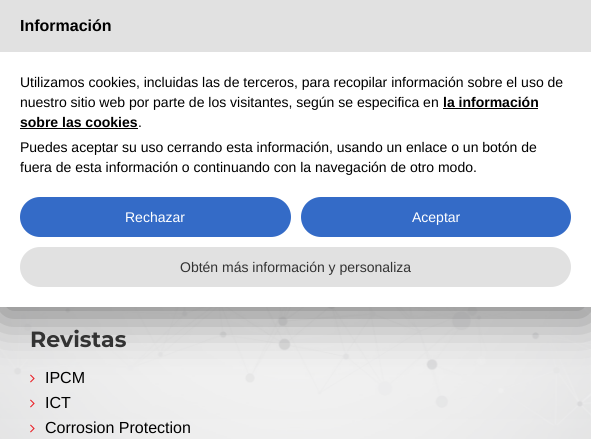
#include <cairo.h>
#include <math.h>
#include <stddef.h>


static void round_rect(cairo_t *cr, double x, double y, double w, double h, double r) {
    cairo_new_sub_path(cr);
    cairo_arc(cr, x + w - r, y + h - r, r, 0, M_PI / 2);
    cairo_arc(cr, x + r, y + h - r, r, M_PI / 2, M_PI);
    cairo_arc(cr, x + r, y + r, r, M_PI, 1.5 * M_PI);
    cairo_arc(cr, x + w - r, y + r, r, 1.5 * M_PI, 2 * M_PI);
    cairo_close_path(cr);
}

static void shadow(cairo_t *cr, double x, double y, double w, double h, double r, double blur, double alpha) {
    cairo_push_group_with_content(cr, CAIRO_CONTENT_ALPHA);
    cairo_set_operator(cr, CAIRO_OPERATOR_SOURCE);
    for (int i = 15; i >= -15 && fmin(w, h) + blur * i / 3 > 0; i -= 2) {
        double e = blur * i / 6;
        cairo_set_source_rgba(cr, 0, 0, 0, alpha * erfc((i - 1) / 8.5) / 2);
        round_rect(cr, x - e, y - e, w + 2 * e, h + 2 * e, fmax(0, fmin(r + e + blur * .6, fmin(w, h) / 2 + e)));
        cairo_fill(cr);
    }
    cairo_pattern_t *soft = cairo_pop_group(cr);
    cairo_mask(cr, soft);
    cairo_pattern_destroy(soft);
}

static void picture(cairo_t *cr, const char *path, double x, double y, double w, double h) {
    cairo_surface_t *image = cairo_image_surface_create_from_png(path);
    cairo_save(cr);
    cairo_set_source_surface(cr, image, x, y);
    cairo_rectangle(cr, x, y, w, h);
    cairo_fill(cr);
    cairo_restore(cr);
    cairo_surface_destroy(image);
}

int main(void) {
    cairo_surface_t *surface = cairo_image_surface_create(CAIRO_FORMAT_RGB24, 591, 439);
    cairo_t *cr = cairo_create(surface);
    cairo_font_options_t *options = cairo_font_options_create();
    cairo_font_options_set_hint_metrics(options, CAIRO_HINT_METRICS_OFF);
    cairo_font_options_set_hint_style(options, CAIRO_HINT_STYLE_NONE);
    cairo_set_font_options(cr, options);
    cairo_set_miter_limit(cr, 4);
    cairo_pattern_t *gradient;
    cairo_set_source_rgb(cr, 1, 1, 1);
    cairo_paint(cr);
    gradient = cairo_pattern_create_linear(296, 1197, 296, -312);
    cairo_pattern_add_color_stop_rgba(gradient, 0, 0.992, 0.992, 0.992, 1);
    cairo_pattern_add_color_stop_rgba(gradient, 1, 0.882, 0.882, 0.882, 1);
    cairo_set_source(cr, gradient);
    cairo_pattern_destroy(gradient);
    cairo_rectangle(cr, 0, 307, 591, 132);
    cairo_fill(cr);
    picture(cr, "img1.png", 0, 307, 591, 132);
    picture(cr, "img2.png", 30, 374, 5, 9);
    cairo_set_source_rgb(cr, 0, 0, 0);
    shadow(cr, 0, 8, 591, 307, 0, 24, 0.5);
    cairo_set_source_rgb(cr, 1, 1, 1);
    cairo_rectangle(cr, 0, 52, 591, 255);
    cairo_fill(cr);
    cairo_set_source_rgb(cr, 0.882, 0.882, 0.882);
    cairo_rectangle(cr, 0, 0, 591, 52);
    cairo_fill(cr);
    cairo_select_font_face(cr, "Arimo", CAIRO_FONT_SLANT_NORMAL, CAIRO_FONT_WEIGHT_BOLD);
    cairo_set_font_size(cr, 16);
    cairo_set_source_rgb(cr, 0, 0, 0);
    cairo_move_to(cr, 20, 31);
    cairo_show_text(cr, "Información");
    cairo_select_font_face(cr, "Arimo", CAIRO_FONT_SLANT_NORMAL, CAIRO_FONT_WEIGHT_NORMAL);
    cairo_set_font_size(cr, 14);
    cairo_move_to(cr, 20, 87);
    cairo_show_text(cr, "Utilizamos cookies, incluidas las de terceros, para recopilar información sobre el uso de");
    cairo_move_to(cr, 20, 107);
    cairo_show_text(cr, "nuestro sitio web por parte de los visitantes, según se especifica en");
    cairo_select_font_face(cr, "Arimo", CAIRO_FONT_SLANT_NORMAL, CAIRO_FONT_WEIGHT_BOLD);
    cairo_move_to(cr, 443, 107);
    cairo_show_text(cr, "la información");
    cairo_rectangle(cr, 443, 108, 95, 1);
    cairo_fill(cr);
    cairo_move_to(cr, 20, 127);
    cairo_show_text(cr, "sobre las cookies");
    cairo_rectangle(cr, 20, 128, 118, 1);
    cairo_fill(cr);
    cairo_select_font_face(cr, "Arimo", CAIRO_FONT_SLANT_NORMAL, CAIRO_FONT_WEIGHT_NORMAL);
    cairo_move_to(cr, 138, 127);
    cairo_show_text(cr, ".");
    cairo_move_to(cr, 20, 152);
    cairo_show_text(cr, "Puedes aceptar su uso cerrando esta información, usando un enlace o un botón de");
    cairo_move_to(cr, 20, 172);
    cairo_show_text(cr, "fuera de esta información o continuando con la navegación de otro modo.");
    cairo_set_source_rgb(cr, 0.204, 0.42, 0.78);
    round_rect(cr, 20, 197, 271, 40, 20);
    cairo_fill(cr);
    cairo_set_source_rgb(cr, 1, 1, 1);
    cairo_move_to(cr, 125, 222);
    cairo_show_text(cr, "Rechazar");
    cairo_set_source_rgb(cr, 0.204, 0.42, 0.78);
    round_rect(cr, 301, 197, 270, 40, 20);
    cairo_fill(cr);
    cairo_set_source_rgb(cr, 1, 1, 1);
    cairo_move_to(cr, 412, 222);
    cairo_show_text(cr, "Aceptar");
    cairo_set_source_rgb(cr, 0.882, 0.882, 0.882);
    round_rect(cr, 20, 247, 551, 40, 20);
    cairo_fill(cr);
    cairo_set_source_rgb(cr, 0.2, 0.2, 0.2);
    cairo_move_to(cr, 180, 272);
    cairo_show_text(cr, "Obtén más información y personaliza");
    cairo_select_font_face(cr, "Montserrat", CAIRO_FONT_SLANT_NORMAL, CAIRO_FONT_WEIGHT_BOLD);
    cairo_set_font_size(cr, 22);
    cairo_move_to(cr, 30, 347);
    cairo_show_text(cr, "Revistas");
    cairo_select_font_face(cr, "Arimo", CAIRO_FONT_SLANT_NORMAL, CAIRO_FONT_WEIGHT_NORMAL);
    cairo_set_font_size(cr, 16);
    cairo_set_source_rgb(cr, 0, 0, 0);
    cairo_move_to(cr, 45, 383);
    cairo_show_text(cr, "IPCM");
    picture(cr, "img3.png", 30, 399, 5, 9);
    cairo_move_to(cr, 45, 408);
    cairo_show_text(cr, "ICT");
    picture(cr, "img4.png", 30, 424, 5, 9);
    cairo_move_to(cr, 45, 433);
    cairo_show_text(cr, "Corrosion Protection");
    cairo_surface_write_to_png(surface, "page.png");
    cairo_font_options_destroy(options);
    cairo_destroy(cr);
    cairo_surface_destroy(surface);
    return 0;
}
